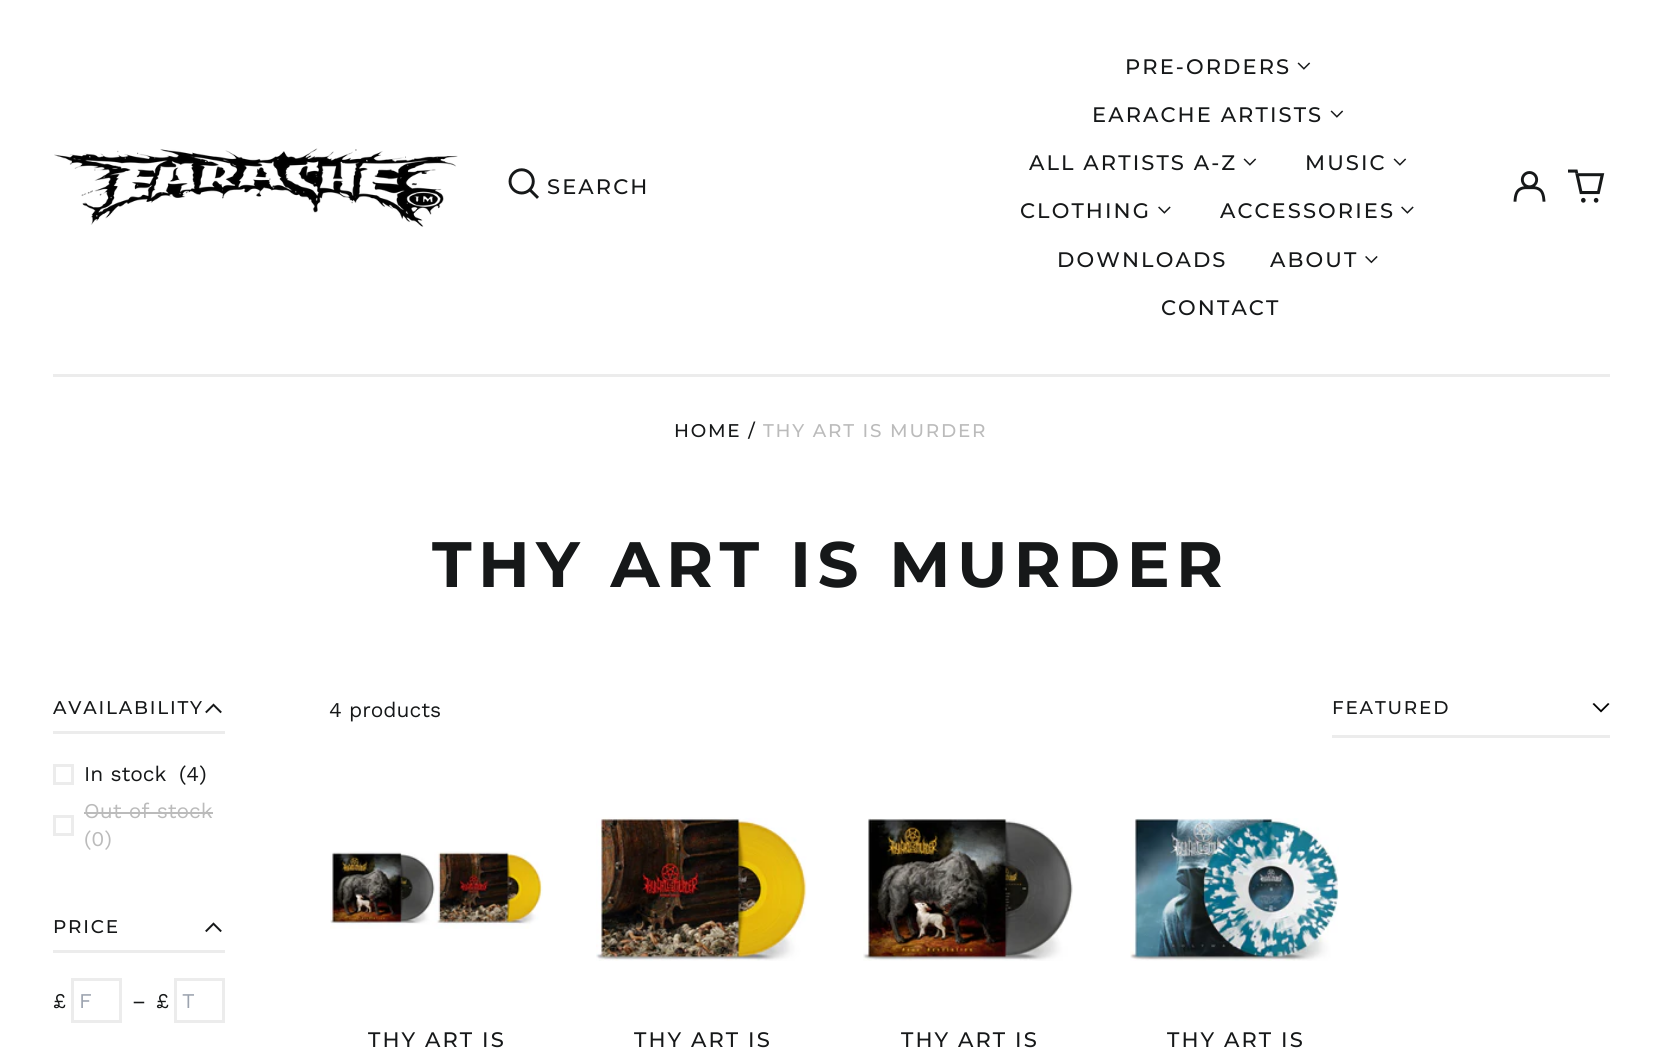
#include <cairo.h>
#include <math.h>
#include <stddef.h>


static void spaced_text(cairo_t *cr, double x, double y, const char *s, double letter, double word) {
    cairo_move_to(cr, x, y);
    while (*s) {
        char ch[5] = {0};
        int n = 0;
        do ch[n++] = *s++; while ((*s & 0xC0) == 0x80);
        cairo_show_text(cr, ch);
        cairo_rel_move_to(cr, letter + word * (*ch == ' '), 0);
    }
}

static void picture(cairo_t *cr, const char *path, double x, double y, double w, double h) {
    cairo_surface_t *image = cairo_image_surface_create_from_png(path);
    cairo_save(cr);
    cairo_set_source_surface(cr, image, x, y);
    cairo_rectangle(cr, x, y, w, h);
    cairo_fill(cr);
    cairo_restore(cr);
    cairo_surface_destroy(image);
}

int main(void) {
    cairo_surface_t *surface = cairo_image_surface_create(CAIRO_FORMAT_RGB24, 1662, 1060);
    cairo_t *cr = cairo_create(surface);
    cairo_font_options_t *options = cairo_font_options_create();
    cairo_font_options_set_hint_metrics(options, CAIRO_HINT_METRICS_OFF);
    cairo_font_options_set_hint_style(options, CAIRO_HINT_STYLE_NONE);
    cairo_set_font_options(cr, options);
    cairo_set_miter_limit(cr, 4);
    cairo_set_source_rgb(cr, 1, 1, 1);
    cairo_paint(cr);
    cairo_set_source_rgb(cr, 0.922, 0.922, 0.922);
    cairo_rectangle(cr, 53, 374, 1557, 3);
    cairo_fill(cr);
    picture(cr, "img1.png", 54, 148, 404, 79);
    picture(cr, "img2.png", 508, 168, 31, 31);
    cairo_select_font_face(cr, "Montserrat Medium", CAIRO_FONT_SLANT_NORMAL, CAIRO_FONT_WEIGHT_NORMAL);
    cairo_set_font_size(cr, 21);
    cairo_set_source_rgb(cr, 0.086, 0.094, 0.098);
    spaced_text(cr, 547, 194, "SEARCH", 2.1, 0);
    spaced_text(cr, 1125, 74, "PRE-ORDERS", 2.1, 0);
    picture(cr, "img3.png", 1297, 62, 14, 8);
    spaced_text(cr, 1092, 122, "EARACHE ARTISTS", 2.1, 0);
    picture(cr, "img3.png", 1330, 110, 14, 8);
    spaced_text(cr, 1029, 170, "ALL ARTISTS A-Z", 2.1, 0);
    picture(cr, "img3.png", 1243, 158, 14, 8);
    spaced_text(cr, 1305, 170, "MUSIC", 2.1, 0);
    picture(cr, "img3.png", 1393, 158, 14, 8);
    spaced_text(cr, 1020, 218, "CLOTHING", 2.1, 0);
    picture(cr, "img4.png", 1158, 206, 13, 8);
    spaced_text(cr, 1220, 218, "ACCESSORIES", 2.1, 0);
    picture(cr, "img4.png", 1401, 206, 13, 8);
    spaced_text(cr, 1057, 267, "DOWNLOADS", 2.1, 0);
    spaced_text(cr, 1270, 267, "ABOUT", 2.1, 0);
    picture(cr, "img5.png", 1365, 256, 13, 8);
    spaced_text(cr, 1161, 315, "CONTACT", 2.1, 0);
    picture(cr, "img6.png", 1513, 171, 33, 31);
    picture(cr, "img7.png", 1568, 169, 37, 34);
    cairo_set_font_size(cr, 18.4);
    spaced_text(cr, 674, 437, "HOME /", 1.8, 0);
    cairo_set_source_rgb(cr, 0.733, 0.733, 0.733);
    spaced_text(cr, 763, 437, "THY ART IS MURDER", 1.8, 0);
    cairo_select_font_face(cr, "Montserrat", CAIRO_FONT_SLANT_NORMAL, CAIRO_FONT_WEIGHT_BOLD);
    cairo_set_font_size(cr, 64.1);
    cairo_set_source_rgb(cr, 0.086, 0.094, 0.098);
    spaced_text(cr, 432, 587, "THY ART IS MURDER", 6.4, 0);
    cairo_set_source_rgb(cr, 0.922, 0.922, 0.922);
    cairo_rectangle(cr, 53, 731, 172, 3);
    cairo_fill(cr);
    cairo_select_font_face(cr, "Montserrat Medium", CAIRO_FONT_SLANT_NORMAL, CAIRO_FONT_WEIGHT_NORMAL);
    cairo_set_font_size(cr, 18.4);
    cairo_set_source_rgb(cr, 0.086, 0.094, 0.098);
    spaced_text(cr, 53, 714, "AVAILABILITY", 1.8, 0);
    picture(cr, "img8.png", 205, 703, 17, 11);
    cairo_rectangle(cr, 54.5, 765.5, 18, 18);
    cairo_set_source_rgb(cr, 0.922, 0.922, 0.922);
    cairo_set_line_width(cr, 3);
    cairo_stroke(cr);
    cairo_select_font_face(cr, "Work Sans", CAIRO_FONT_SLANT_NORMAL, CAIRO_FONT_WEIGHT_NORMAL);
    cairo_set_font_size(cr, 21);
    cairo_set_source_rgb(cr, 0.086, 0.094, 0.098);
    cairo_move_to(cr, 84, 781);
    cairo_show_text(cr, "In stock");
    cairo_move_to(cr, 179, 781);
    cairo_show_text(cr, "(4)");
    cairo_rectangle(cr, 54.5, 816.5, 18, 18);
    cairo_set_source_rgb(cr, 0.922, 0.922, 0.922);
    cairo_stroke(cr);
    cairo_set_source_rgb(cr, 0.733, 0.733, 0.733);
    cairo_move_to(cr, 84, 818);
    cairo_show_text(cr, "Out of stock");
    cairo_rectangle(cr, 84, 812, 129, 2);
    cairo_fill(cr);
    cairo_move_to(cr, 84, 846);
    cairo_show_text(cr, "(0)");
    cairo_set_source_rgb(cr, 0.922, 0.922, 0.922);
    cairo_rectangle(cr, 53, 950, 172, 3);
    cairo_fill(cr);
    cairo_select_font_face(cr, "Montserrat Medium", CAIRO_FONT_SLANT_NORMAL, CAIRO_FONT_WEIGHT_NORMAL);
    cairo_set_font_size(cr, 18.4);
    cairo_set_source_rgb(cr, 0.086, 0.094, 0.098);
    spaced_text(cr, 53, 933, "PRICE", 1.8, 0);
    picture(cr, "img9.png", 205, 922, 17, 11);
    cairo_select_font_face(cr, "Work Sans", CAIRO_FONT_SLANT_NORMAL, CAIRO_FONT_WEIGHT_NORMAL);
    cairo_set_font_size(cr, 21);
    cairo_move_to(cr, 53, 1008);
    cairo_show_text(cr, "£");
    cairo_rectangle(cr, 72.5, 979.5, 48, 42);
    cairo_set_source_rgb(cr, 0.922, 0.922, 0.922);
    cairo_stroke(cr);
    cairo_set_source_rgb(cr, 0.612, 0.639, 0.686);
    cairo_move_to(cr, 79, 1008);
    cairo_show_text(cr, "F");
    cairo_set_source_rgb(cr, 0.086, 0.094, 0.098);
    cairo_move_to(cr, 132, 1008);
    cairo_show_text(cr, "–");
    cairo_move_to(cr, 156, 1008);
    cairo_show_text(cr, "£");
    cairo_rectangle(cr, 175.5, 979.5, 48, 42);
    cairo_set_source_rgb(cr, 0.922, 0.922, 0.922);
    cairo_stroke(cr);
    cairo_set_source_rgb(cr, 0.612, 0.639, 0.686);
    cairo_move_to(cr, 182, 1008);
    cairo_show_text(cr, "T");
    cairo_set_source_rgb(cr, 0.086, 0.094, 0.098);
    cairo_move_to(cr, 329, 717);
    cairo_show_text(cr, "4 products");
    cairo_set_source_rgb(cr, 0, 0, 0);
    cairo_set_fill_rule(cr, CAIRO_FILL_RULE_EVEN_ODD);
    cairo_new_path(cr);
    cairo_move_to(cr, 1608, 703);
    cairo_line_to(cr, 1609.5, 704);
    cairo_line_to(cr, 1601, 712.5);
    cairo_line_to(cr, 1592.5, 704);
    cairo_line_to(cr, 1594, 703);
    cairo_line_to(cr, 1601, 710);
    cairo_close_path(cr);
    cairo_fill(cr);
    cairo_set_source_rgb(cr, 0.922, 0.922, 0.922);
    cairo_rectangle(cr, 1332, 735, 278, 3);
    cairo_fill(cr);
    cairo_select_font_face(cr, "Montserrat Medium", CAIRO_FONT_SLANT_NORMAL, CAIRO_FONT_WEIGHT_NORMAL);
    cairo_set_font_size(cr, 18.4);
    cairo_set_source_rgb(cr, 0.086, 0.094, 0.098);
    spaced_text(cr, 1332, 714, "FEATURED", 1.8, 0);
    picture(cr, "img10.png", 330, 851, 213, 78);
    cairo_set_font_size(cr, 21);
    spaced_text(cr, 368, 1047, "THY ART IS", 2.1, 0);
    picture(cr, "img11.png", 596, 817, 211, 144);
    spaced_text(cr, 634, 1047, "THY ART IS", 2.1, 0);
    picture(cr, "img12.png", 863, 818, 210, 143);
    spaced_text(cr, 901, 1047, "THY ART IS", 2.1, 0);
    picture(cr, "img13.png", 1130, 818, 209, 143);
    spaced_text(cr, 1167, 1047, "THY ART IS", 2.1, 0);
    cairo_surface_write_to_png(surface, "page.png");
    cairo_font_options_destroy(options);
    cairo_destroy(cr);
    cairo_surface_destroy(surface);
    return 0;
}
